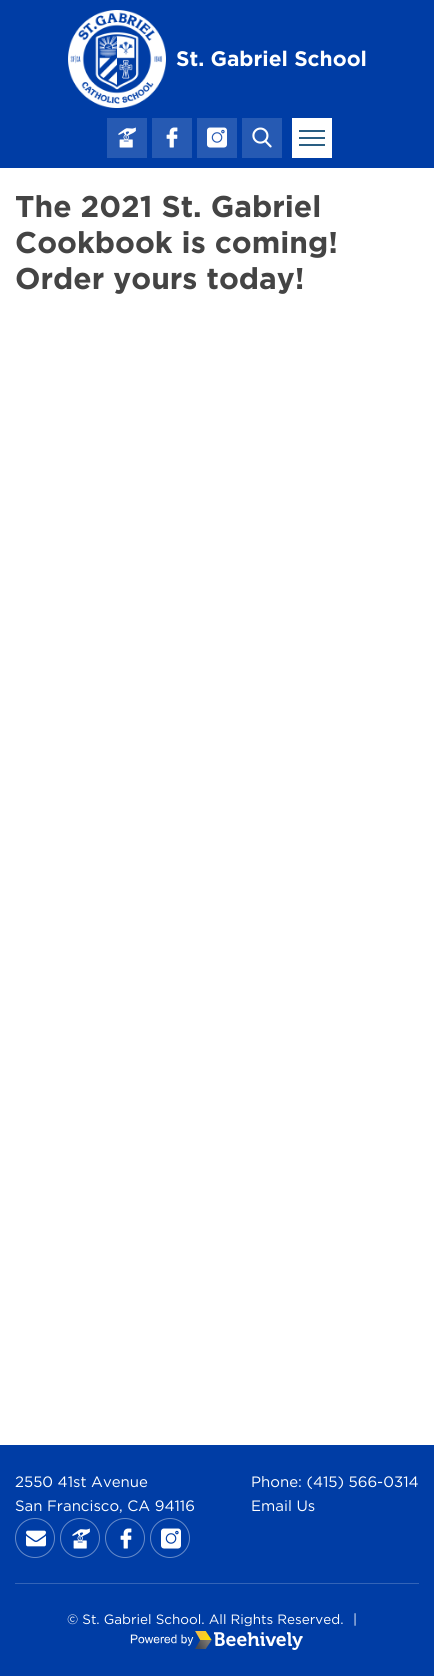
#include <cairo.h>
#include <math.h>
#include <stddef.h>


static void picture(cairo_t *cr, const char *path, double x, double y, double w, double h) {
    cairo_surface_t *image = cairo_image_surface_create_from_png(path);
    cairo_save(cr);
    cairo_set_source_surface(cr, image, x, y);
    cairo_rectangle(cr, x, y, w, h);
    cairo_fill(cr);
    cairo_restore(cr);
    cairo_surface_destroy(image);
}

int main(void) {
    cairo_surface_t *surface = cairo_image_surface_create(CAIRO_FORMAT_RGB24, 434, 1676);
    cairo_t *cr = cairo_create(surface);
    cairo_font_options_t *options = cairo_font_options_create();
    cairo_font_options_set_hint_metrics(options, CAIRO_HINT_METRICS_OFF);
    cairo_font_options_set_hint_style(options, CAIRO_HINT_STYLE_NONE);
    cairo_set_font_options(cr, options);
    cairo_set_miter_limit(cr, 4);
    cairo_set_source_rgb(cr, 1, 1, 1);
    cairo_paint(cr);
    cairo_set_source_rgb(cr, 0, 0.239, 0.647);
    cairo_rectangle(cr, 0, 0, 434, 168);
    cairo_fill(cr);
    picture(cr, "img1.png", 68, 10, 98, 98);
    cairo_select_font_face(cr, "Gotham", CAIRO_FONT_SLANT_NORMAL, CAIRO_FONT_WEIGHT_BOLD);
    cairo_set_font_size(cr, 21);
    cairo_set_source_rgb(cr, 1, 1, 1);
    cairo_move_to(cr, 176, 66);
    cairo_show_text(cr, "St. Gabriel School");
    cairo_set_source_rgb(cr, 0.149, 0.353, 0.702);
    cairo_rectangle(cr, 107, 118, 40, 40);
    cairo_fill(cr);
    picture(cr, "img2.png", 118, 127, 18, 21);
    cairo_rectangle(cr, 152, 118, 40, 40);
    cairo_fill(cr);
    picture(cr, "img3.png", 166, 127, 12, 21);
    cairo_rectangle(cr, 197, 118, 40, 40);
    cairo_fill(cr);
    picture(cr, "img4.png", 207, 127, 20, 21);
    cairo_rectangle(cr, 242, 118, 40, 40);
    cairo_fill(cr);
    picture(cr, "img5.png", 252, 127, 20, 21);
    cairo_set_source_rgb(cr, 1, 1, 1);
    cairo_rectangle(cr, 292, 118, 40, 40);
    cairo_fill(cr);
    cairo_set_source_rgb(cr, 0.161, 0.369, 0.51);
    cairo_rectangle(cr, 299, 137, 26, 2);
    cairo_fill(cr);
    cairo_rectangle(cr, 299, 130, 26, 2);
    cairo_fill(cr);
    cairo_rectangle(cr, 299, 144, 26, 2);
    cairo_fill(cr);
    cairo_set_font_size(cr, 30);
    cairo_set_source_rgb(cr, 0.267, 0.267, 0.267);
    cairo_move_to(cr, 15, 217);
    cairo_show_text(cr, "The 2021 St. Gabriel");
    cairo_move_to(cr, 15, 253);
    cairo_show_text(cr, "Cookbook is coming!");
    cairo_move_to(cr, 15, 289);
    cairo_show_text(cr, "Order yours today!");
    cairo_set_source_rgb(cr, 0, 0.239, 0.647);
    cairo_rectangle(cr, 0, 1445, 434, 231);
    cairo_fill(cr);
    cairo_set_source_rgb(cr, 0.2, 0.392, 0.718);
    cairo_rectangle(cr, 15, 1583, 404, 1);
    cairo_fill(cr);
    cairo_select_font_face(cr, "Gotham", CAIRO_FONT_SLANT_NORMAL, CAIRO_FONT_WEIGHT_NORMAL);
    cairo_set_font_size(cr, 15);
    cairo_set_source_rgb(cr, 1, 1, 1);
    cairo_move_to(cr, 15, 1487);
    cairo_show_text(cr, "2550 41st Avenue");
    cairo_move_to(cr, 15, 1511);
    cairo_show_text(cr, "San Francisco, CA 94116");
    cairo_move_to(cr, 251, 1487);
    cairo_show_text(cr, "Phone: (415) 566-0314");
    cairo_move_to(cr, 251, 1511);
    cairo_show_text(cr, "Email Us");
    cairo_new_path(cr);
    cairo_arc(cr, 35, 1538, 19.5, 0, 2 * M_PI);
    cairo_set_source_rgb(cr, 0.404, 0.545, 0.788);
    cairo_set_line_width(cr, 1);
    cairo_stroke(cr);
    picture(cr, "img6.png", 26, 1530, 20, 17);
    cairo_arc(cr, 80, 1538, 19.5, 0, 2 * M_PI);
    cairo_stroke(cr);
    picture(cr, "img7.png", 72, 1528, 18, 21);
    cairo_arc(cr, 125, 1538, 19.5, 0, 2 * M_PI);
    cairo_stroke(cr);
    picture(cr, "img8.png", 120, 1528, 12, 21);
    cairo_arc(cr, 170, 1538, 19.5, 0, 2 * M_PI);
    cairo_stroke(cr);
    picture(cr, "img9.png", 161, 1528, 20, 21);
    cairo_set_font_size(cr, 13.5);
    cairo_set_source_rgb(cr, 1, 1, 1);
    cairo_move_to(cr, 67, 1624);
    cairo_show_text(cr, "© St. Gabriel School. All Rights Reserved.");
    cairo_move_to(cr, 353, 1624);
    cairo_show_text(cr, "|");
    picture(cr, "img10.png", 130, 1631, 173, 19);
    cairo_surface_write_to_png(surface, "page.png");
    cairo_font_options_destroy(options);
    cairo_destroy(cr);
    cairo_surface_destroy(surface);
    return 0;
}
